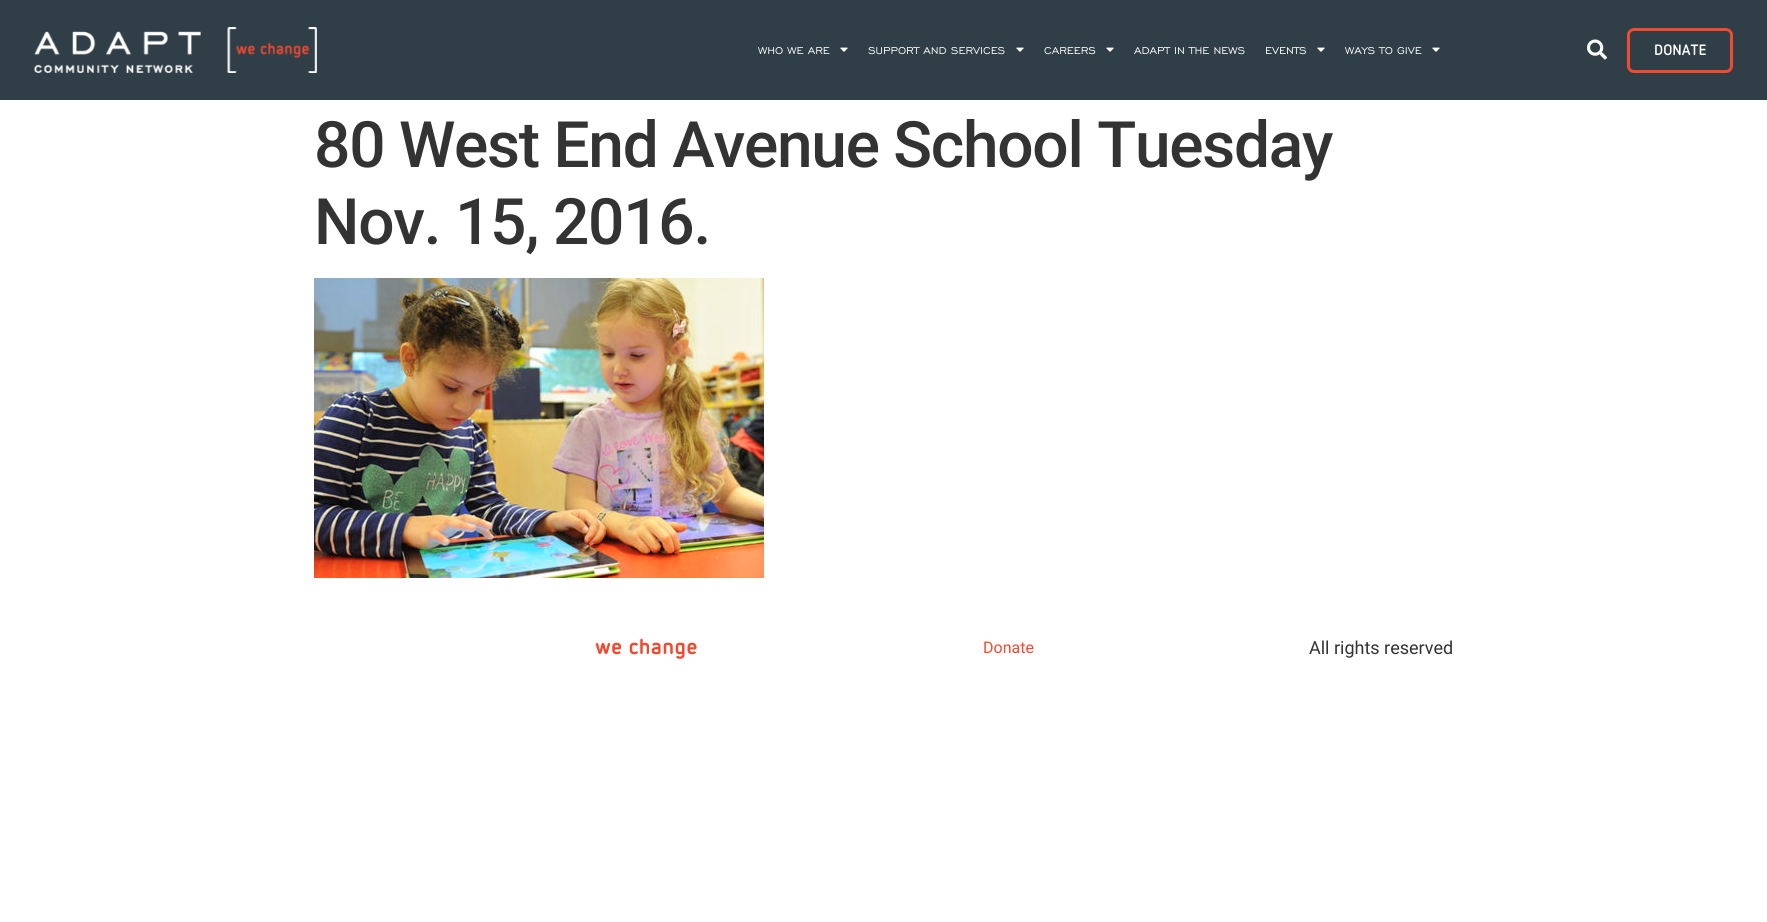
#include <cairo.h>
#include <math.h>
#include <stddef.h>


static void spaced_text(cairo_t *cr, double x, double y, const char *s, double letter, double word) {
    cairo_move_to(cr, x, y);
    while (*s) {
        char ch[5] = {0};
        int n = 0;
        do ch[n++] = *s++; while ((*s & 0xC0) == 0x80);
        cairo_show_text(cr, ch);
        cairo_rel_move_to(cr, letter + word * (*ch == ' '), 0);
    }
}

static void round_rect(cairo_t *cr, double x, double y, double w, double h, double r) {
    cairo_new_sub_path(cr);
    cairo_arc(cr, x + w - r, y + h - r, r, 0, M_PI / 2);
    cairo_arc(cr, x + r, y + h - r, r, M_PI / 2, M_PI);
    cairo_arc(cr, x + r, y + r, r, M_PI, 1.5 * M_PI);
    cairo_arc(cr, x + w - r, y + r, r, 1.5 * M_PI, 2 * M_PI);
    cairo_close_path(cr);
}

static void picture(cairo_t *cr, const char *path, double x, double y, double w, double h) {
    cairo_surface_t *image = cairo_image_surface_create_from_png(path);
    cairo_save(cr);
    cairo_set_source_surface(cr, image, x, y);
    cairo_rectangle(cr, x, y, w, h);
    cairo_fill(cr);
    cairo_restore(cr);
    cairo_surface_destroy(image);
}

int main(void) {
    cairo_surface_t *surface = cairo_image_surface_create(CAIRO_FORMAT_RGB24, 1767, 922);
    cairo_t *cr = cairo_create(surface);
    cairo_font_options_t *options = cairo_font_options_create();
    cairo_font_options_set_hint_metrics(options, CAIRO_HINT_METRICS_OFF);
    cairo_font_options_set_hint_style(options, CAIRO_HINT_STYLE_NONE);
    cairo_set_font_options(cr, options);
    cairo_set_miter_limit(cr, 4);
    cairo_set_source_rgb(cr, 1, 1, 1);
    cairo_paint(cr);
    cairo_set_source_rgb(cr, 0.188, 0.243, 0.282);
    cairo_rectangle(cr, 0, 0, 1767, 100);
    cairo_fill(cr);
    picture(cr, "img1.png", 33, 27, 284, 46);
    cairo_select_font_face(cr, "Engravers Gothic", CAIRO_FONT_SLANT_NORMAL, CAIRO_FONT_WEIGHT_NORMAL);
    cairo_set_font_size(cr, 12.75);
    cairo_set_source_rgb(cr, 1, 1, 1);
    cairo_move_to(cr, 758, 54);
    cairo_show_text(cr, "WHO WE ARE");
    picture(cr, "img2.png", 840, 47, 8, 5);
    cairo_move_to(cr, 868, 54);
    cairo_show_text(cr, "SUPPORT AND SERVICES");
    picture(cr, "img2.png", 1016, 47, 8, 5);
    cairo_move_to(cr, 1044, 54);
    cairo_show_text(cr, "CAREERS");
    picture(cr, "img2.png", 1106, 47, 8, 5);
    cairo_move_to(cr, 1134, 54);
    cairo_show_text(cr, "ADAPT IN THE NEWS");
    cairo_move_to(cr, 1265, 54);
    cairo_show_text(cr, "EVENTS");
    picture(cr, "img2.png", 1317, 47, 8, 5);
    cairo_move_to(cr, 1345, 54);
    cairo_show_text(cr, "WAYS TO GIVE");
    picture(cr, "img2.png", 1432, 47, 8, 5);
    picture(cr, "img3.png", 1587, 39, 20, 21);
    round_rect(cr, 1628.5, 29.5, 103, 42, 5.5);
    cairo_set_source_rgb(cr, 0.941, 0.29, 0.188);
    cairo_set_line_width(cr, 3);
    cairo_stroke(cr);
    cairo_select_font_face(cr, "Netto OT", CAIRO_FONT_SLANT_NORMAL, CAIRO_FONT_WEIGHT_BOLD);
    cairo_set_font_size(cr, 15);
    cairo_set_source_rgb(cr, 1, 1, 1);
    cairo_move_to(cr, 1654, 55);
    cairo_show_text(cr, "DONATE");
    cairo_select_font_face(cr, "Roboto Medium", CAIRO_FONT_SLANT_NORMAL, CAIRO_FONT_WEIGHT_NORMAL);
    cairo_set_font_size(cr, 64);
    cairo_set_source_rgb(cr, 0.2, 0.2, 0.2);
    spaced_text(cr, 314, 167, "80 West End Avenue School Tuesday", -1.25, 0);
    spaced_text(cr, 314, 244, "Nov. 15, 2016.", -1.25, 0);
    picture(cr, "img4.png", 314, 278, 450, 300);
    picture(cr, "img5.png", 595, 638, 102, 21);
    cairo_select_font_face(cr, "Roboto", CAIRO_FONT_SLANT_NORMAL, CAIRO_FONT_WEIGHT_NORMAL);
    cairo_set_font_size(cr, 16);
    cairo_set_source_rgb(cr, 0.941, 0.29, 0.188);
    cairo_move_to(cr, 983, 653);
    cairo_show_text(cr, "Donate");
    cairo_set_font_size(cr, 18);
    cairo_set_source_rgb(cr, 0.2, 0.2, 0.2);
    cairo_move_to(cr, 1309, 654);
    cairo_show_text(cr, "All rights reserved");
    cairo_surface_write_to_png(surface, "page.png");
    cairo_font_options_destroy(options);
    cairo_destroy(cr);
    cairo_surface_destroy(surface);
    return 0;
}
